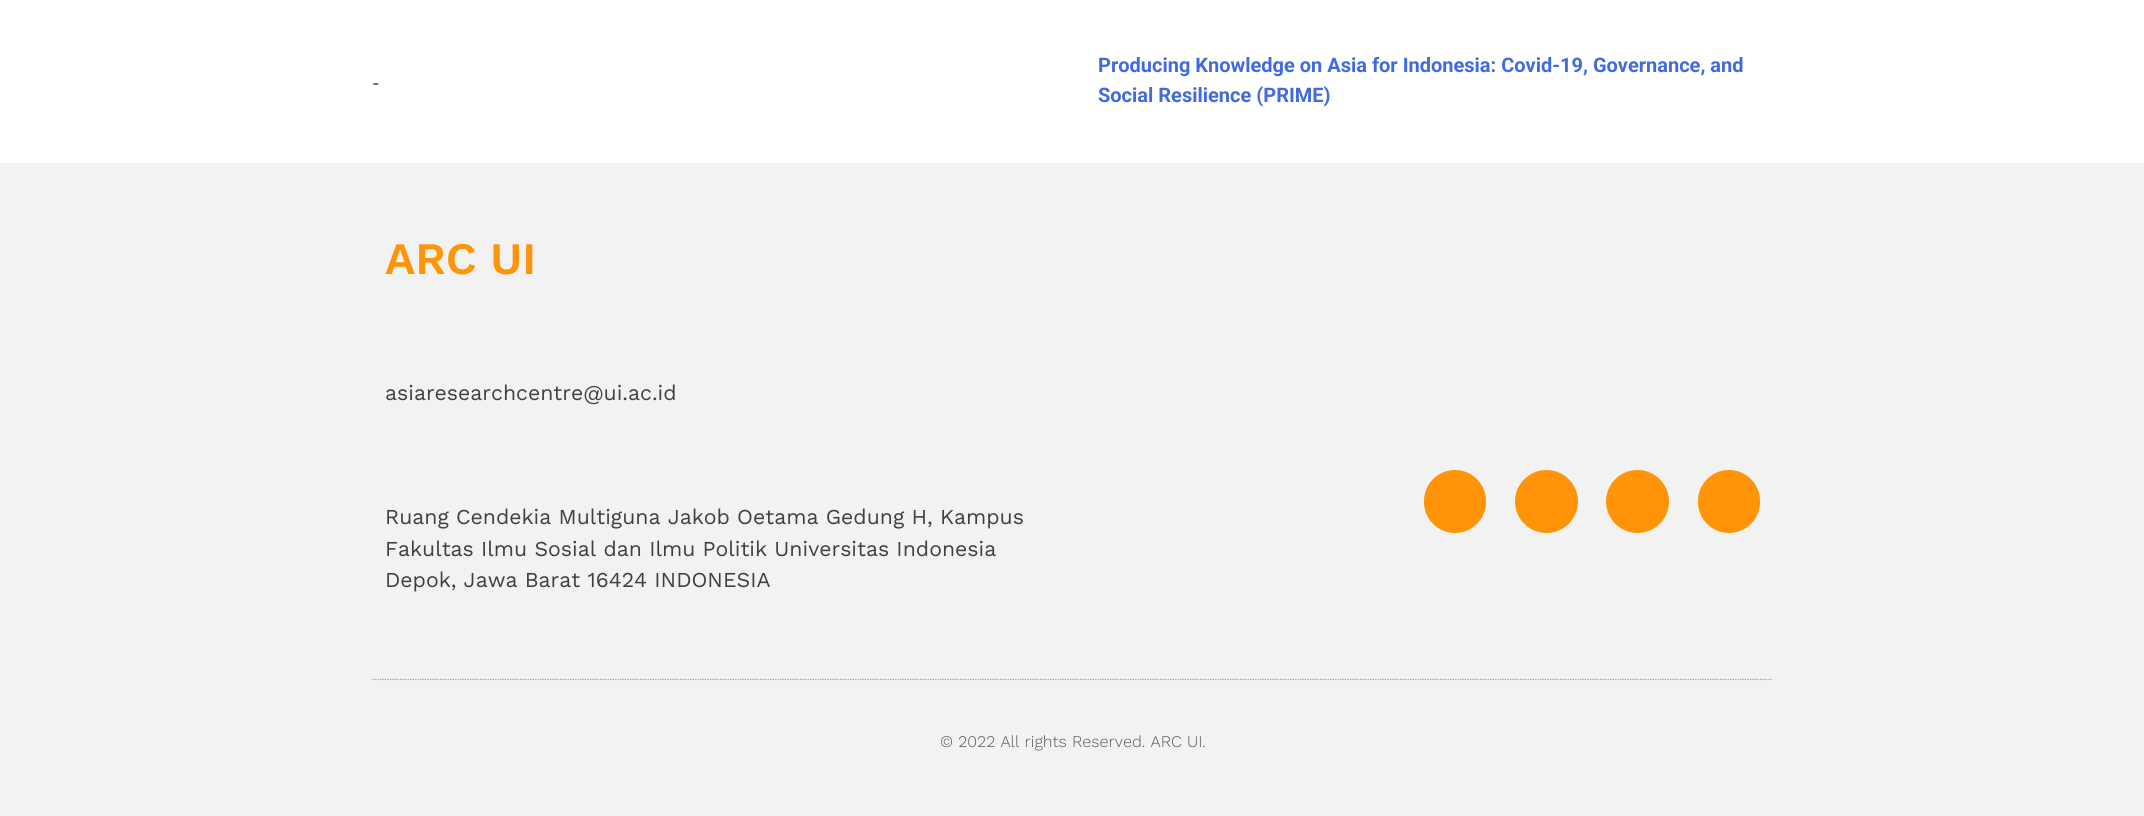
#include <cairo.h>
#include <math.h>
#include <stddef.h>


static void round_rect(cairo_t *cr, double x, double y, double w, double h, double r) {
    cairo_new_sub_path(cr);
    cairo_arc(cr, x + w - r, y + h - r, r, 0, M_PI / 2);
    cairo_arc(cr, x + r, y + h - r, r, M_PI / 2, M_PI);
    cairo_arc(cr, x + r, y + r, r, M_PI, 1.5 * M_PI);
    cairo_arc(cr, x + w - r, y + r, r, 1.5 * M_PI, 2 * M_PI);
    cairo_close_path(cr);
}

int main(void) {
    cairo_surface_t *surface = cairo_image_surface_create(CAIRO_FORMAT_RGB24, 2144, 816);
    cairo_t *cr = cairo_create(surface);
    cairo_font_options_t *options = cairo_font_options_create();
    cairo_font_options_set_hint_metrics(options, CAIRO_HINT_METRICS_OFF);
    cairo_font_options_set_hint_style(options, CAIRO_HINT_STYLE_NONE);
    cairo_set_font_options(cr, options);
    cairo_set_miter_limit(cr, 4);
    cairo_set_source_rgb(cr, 1, 1, 1);
    cairo_paint(cr);
    cairo_select_font_face(cr, "Roboto", CAIRO_FONT_SLANT_NORMAL, CAIRO_FONT_WEIGHT_NORMAL);
    cairo_set_font_size(cr, 20);
    cairo_set_source_rgb(cr, 0.251, 0.251, 0.251);
    cairo_move_to(cr, 373, 90);
    cairo_show_text(cr, "-");
    cairo_select_font_face(cr, "Roboto", CAIRO_FONT_SLANT_NORMAL, CAIRO_FONT_WEIGHT_BOLD);
    cairo_set_source_rgb(cr, 0.255, 0.412, 0.882);
    cairo_move_to(cr, 1098, 72);
    cairo_show_text(cr, "Producing Knowledge on Asia for Indonesia: Covid-19, Governance, and");
    cairo_move_to(cr, 1098, 102);
    cairo_show_text(cr, "Social Resilience (PRIME)");
    cairo_set_source_rgb(cr, 0.949, 0.949, 0.949);
    cairo_rectangle(cr, 0, 163, 2144, 653);
    cairo_fill(cr);
    cairo_new_path(cr);
    cairo_move_to(cr, 372.5, 679.5);
    cairo_line_to(cr, 1772.5, 679.5);
    cairo_set_source_rgb(cr, 0.608, 0.608, 0.608);
    cairo_set_line_width(cr, 1.2);
    cairo_set_dash(cr, (double[]){1.25, 1.25}, 2, 0);
    cairo_stroke(cr);
    cairo_select_font_face(cr, "Work Sans SemiBold", CAIRO_FONT_SLANT_NORMAL, CAIRO_FONT_WEIGHT_NORMAL);
    cairo_set_font_size(cr, 45);
    cairo_set_source_rgb(cr, 1, 0.58, 0.035);
    cairo_move_to(cr, 385, 274);
    cairo_show_text(cr, "ARC UI");
    cairo_select_font_face(cr, "Work Sans", CAIRO_FONT_SLANT_NORMAL, CAIRO_FONT_WEIGHT_NORMAL);
    cairo_set_font_size(cr, 21.25);
    cairo_set_source_rgb(cr, 0.251, 0.251, 0.251);
    cairo_move_to(cr, 385, 400);
    cairo_show_text(cr, "asiaresearchcentre@ui.ac.id");
    cairo_move_to(cr, 385, 524);
    cairo_show_text(cr, "Ruang Cendekia Multiguna Jakob Oetama Gedung H, Kampus");
    cairo_move_to(cr, 385, 556);
    cairo_show_text(cr, "Fakultas Ilmu Sosial dan Ilmu Politik Universitas Indonesia");
    cairo_move_to(cr, 385, 587);
    cairo_show_text(cr, "Depok, Jawa Barat 16424 INDONESIA");
    cairo_set_source_rgb(cr, 1, 0.58, 0.035);
    round_rect(cr, 1424, 470, 62, 63, 31);
    cairo_fill(cr);
    cairo_arc(cr, 1546.5, 501.5, 31.5, 0, 2 * M_PI);
    cairo_fill(cr);
    cairo_arc(cr, 1637.5, 501.5, 31.5, 0, 2 * M_PI);
    cairo_fill(cr);
    round_rect(cr, 1698, 470, 62, 63, 31);
    cairo_fill(cr);
    cairo_select_font_face(cr, "Work Sans Light", CAIRO_FONT_SLANT_NORMAL, CAIRO_FONT_WEIGHT_NORMAL);
    cairo_set_font_size(cr, 16.25);
    cairo_set_source_rgb(cr, 0.329, 0.349, 0.373);
    cairo_move_to(cr, 940, 747);
    cairo_show_text(cr, "© 2022 All rights Reserved. ARC UI.");
    cairo_surface_write_to_png(surface, "page.png");
    cairo_font_options_destroy(options);
    cairo_destroy(cr);
    cairo_surface_destroy(surface);
    return 0;
}
